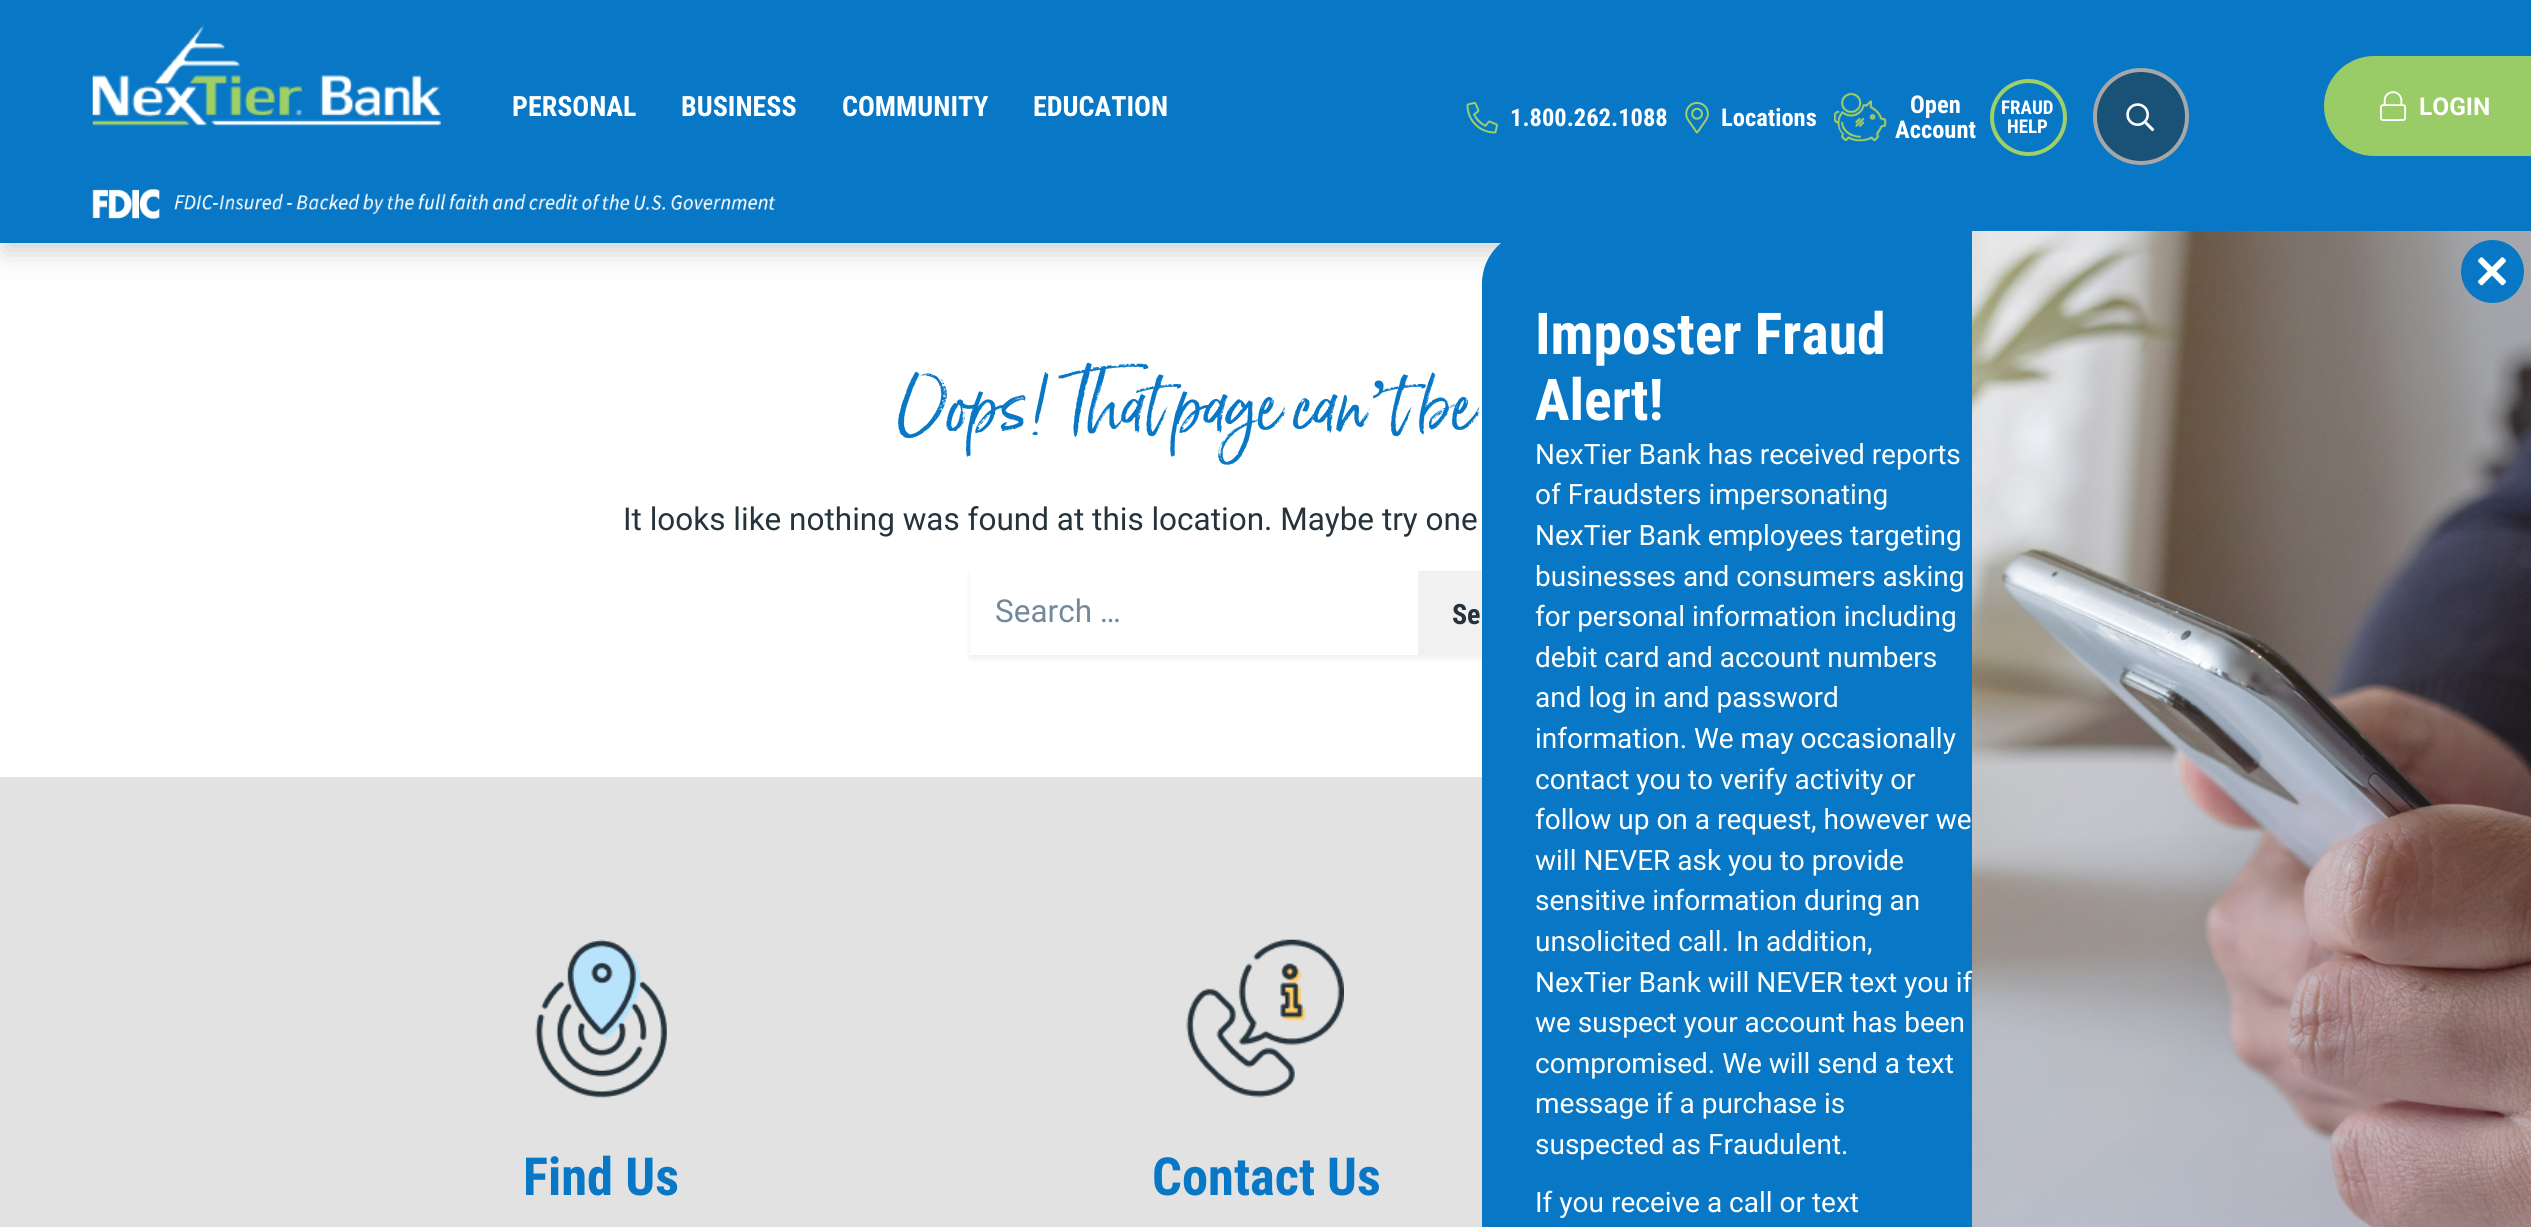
#include <cairo.h>
#include <math.h>
#include <stddef.h>


static void round_rect(cairo_t *cr, double x, double y, double w, double h, double r) {
    cairo_new_sub_path(cr);
    cairo_arc(cr, x + w - r, y + h - r, r, 0, M_PI / 2);
    cairo_arc(cr, x + r, y + h - r, r, M_PI / 2, M_PI);
    cairo_arc(cr, x + r, y + r, r, M_PI, 1.5 * M_PI);
    cairo_arc(cr, x + w - r, y + r, r, 1.5 * M_PI, 2 * M_PI);
    cairo_close_path(cr);
}

static void shadow(cairo_t *cr, double x, double y, double w, double h, double r, double blur, double alpha) {
    cairo_push_group_with_content(cr, CAIRO_CONTENT_ALPHA);
    cairo_set_operator(cr, CAIRO_OPERATOR_SOURCE);
    for (int i = 15; i >= -15 && fmin(w, h) + blur * i / 3 > 0; i -= 2) {
        double e = blur * i / 6;
        cairo_set_source_rgba(cr, 0, 0, 0, alpha * erfc((i - 1) / 8.5) / 2);
        round_rect(cr, x - e, y - e, w + 2 * e, h + 2 * e, fmax(0, fmin(r + e + blur * .6, fmin(w, h) / 2 + e)));
        cairo_fill(cr);
    }
    cairo_pattern_t *soft = cairo_pop_group(cr);
    cairo_mask(cr, soft);
    cairo_pattern_destroy(soft);
}

static void picture(cairo_t *cr, const char *path, double x, double y, double w, double h) {
    cairo_surface_t *image = cairo_image_surface_create_from_png(path);
    cairo_save(cr);
    cairo_set_source_surface(cr, image, x, y);
    cairo_rectangle(cr, x, y, w, h);
    cairo_fill(cr);
    cairo_restore(cr);
    cairo_surface_destroy(image);
}

int main(void) {
    cairo_surface_t *surface = cairo_image_surface_create(CAIRO_FORMAT_RGB24, 2531, 1227);
    cairo_t *cr = cairo_create(surface);
    cairo_font_options_t *options = cairo_font_options_create();
    cairo_font_options_set_hint_metrics(options, CAIRO_HINT_METRICS_OFF);
    cairo_font_options_set_hint_style(options, CAIRO_HINT_STYLE_NONE);
    cairo_set_font_options(cr, options);
    cairo_set_miter_limit(cr, 4);
    cairo_set_source_rgb(cr, 1, 1, 1);
    cairo_paint(cr);
    cairo_set_source_rgb(cr, 0.8, 0.8, 0.8);
    shadow(cr, 5, 7, 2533, 243, 0, 14, 1);
    cairo_set_source_rgb(cr, 0.035, 0.471, 0.776);
    cairo_rectangle(cr, 0, 0, 2531, 243);
    cairo_fill(cr);
    picture(cr, "img1.png", 92, 24, 349, 102);
    cairo_select_font_face(cr, "Roboto Condensed", CAIRO_FONT_SLANT_NORMAL, CAIRO_FONT_WEIGHT_BOLD);
    cairo_set_font_size(cr, 28);
    cairo_set_source_rgb(cr, 1, 1, 1);
    cairo_move_to(cr, 512, 116);
    cairo_show_text(cr, "PERSONAL");
    cairo_move_to(cr, 681, 116);
    cairo_show_text(cr, "BUSINESS");
    cairo_move_to(cr, 842, 116);
    cairo_show_text(cr, "COMMUNITY");
    cairo_move_to(cr, 1033, 116);
    cairo_show_text(cr, "EDUCATION");
    picture(cr, "img2.png", 1466, 102, 32, 32);
    cairo_set_font_size(cr, 24.5);
    cairo_move_to(cr, 1510, 126);
    cairo_show_text(cr, "1.800.262.1088");
    picture(cr, "img3.png", 1685, 101, 24, 33);
    cairo_move_to(cr, 1721, 126);
    cairo_show_text(cr, "Locations");
    picture(cr, "img4.png", 1834, 92, 53, 50);
    cairo_move_to(cr, 1910, 113);
    cairo_show_text(cr, "Open");
    cairo_move_to(cr, 1895, 138);
    cairo_show_text(cr, "Account");
    cairo_new_path(cr);
    cairo_arc(cr, 2028.5, 117.5, 36.5, 0, 2 * M_PI);
    cairo_set_source_rgb(cr, 0.624, 0.812, 0.404);
    cairo_set_line_width(cr, 4);
    cairo_stroke(cr);
    cairo_set_font_size(cr, 19);
    cairo_set_source_rgb(cr, 1, 1, 1);
    cairo_move_to(cr, 2001, 114);
    cairo_show_text(cr, "FRAUD");
    cairo_move_to(cr, 2007, 133);
    cairo_show_text(cr, "HELP");
    cairo_set_source_rgb(cr, 0.098, 0.318, 0.467);
    round_rect(cr, 2095, 70, 92, 93, 46);
    cairo_fill_preserve(cr);
    cairo_set_source_rgb(cr, 0.655, 0.655, 0.655);
    cairo_stroke(cr);
    picture(cr, "img5.png", 2126, 103, 29, 29);
    cairo_set_source_rgb(cr, 0.6, 0.8, 0.4);
    cairo_new_path(cr);
    cairo_move_to(cr, 2374, 56);
    cairo_line_to(cr, 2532, 56);
    cairo_line_to(cr, 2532, 156);
    cairo_line_to(cr, 2374, 156);
    cairo_curve_to(cr, 2346.5, 156, 2324, 133.5, 2324, 106);
    cairo_curve_to(cr, 2324, 78.5, 2346.5, 56, 2374, 56);
    cairo_close_path(cr);
    cairo_fill(cr);
    picture(cr, "img6.png", 2380, 91, 27, 30);
    cairo_select_font_face(cr, "Roboto", CAIRO_FONT_SLANT_NORMAL, CAIRO_FONT_WEIGHT_BOLD);
    cairo_set_font_size(cr, 24.5);
    cairo_set_source_rgb(cr, 1, 1, 1);
    cairo_move_to(cr, 2419, 115);
    cairo_show_text(cr, "LOGIN");
    picture(cr, "img7.png", 92, 189, 684, 30);
    cairo_select_font_face(cr, "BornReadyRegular", CAIRO_FONT_SLANT_NORMAL, CAIRO_FONT_WEIGHT_NORMAL);
    cairo_set_font_size(cr, 70);
    cairo_set_source_rgb(cr, 0.035, 0.471, 0.776);
    cairo_move_to(cr, 897, 427);
    cairo_show_text(cr, "Oops! That page can");
    cairo_select_font_face(cr, "Liberation Serif", CAIRO_FONT_SLANT_NORMAL, CAIRO_FONT_WEIGHT_NORMAL);
    cairo_move_to(cr, 1367, 427);
    cairo_show_text(cr, "’");
    cairo_select_font_face(cr, "BornReadyRegular", CAIRO_FONT_SLANT_NORMAL, CAIRO_FONT_WEIGHT_NORMAL);
    cairo_move_to(cr, 1390, 427);
    cairo_show_text(cr, "t be");
    cairo_select_font_face(cr, "Roboto", CAIRO_FONT_SLANT_NORMAL, CAIRO_FONT_WEIGHT_NORMAL);
    cairo_set_font_size(cr, 31.5);
    cairo_set_source_rgb(cr, 0.145, 0.2, 0.235);
    cairo_move_to(cr, 623, 530);
    cairo_show_text(cr, "It looks like nothing was found at this location. Maybe try one");
    cairo_save(cr);
    cairo_set_fill_rule(cr, CAIRO_FILL_RULE_EVEN_ODD);
    cairo_new_path(cr);
    cairo_move_to(cr, 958, 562);
    cairo_line_to(cr, 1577, 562);
    cairo_line_to(cr, 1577, 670);
    cairo_line_to(cr, 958, 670);
    cairo_close_path(cr);
    cairo_move_to(cr, 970, 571);
    cairo_line_to(cr, 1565, 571);
    cairo_line_to(cr, 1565, 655);
    cairo_line_to(cr, 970, 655);
    cairo_close_path(cr);
    cairo_clip(cr);
    cairo_set_source_rgb(cr, 0, 0, 0);
    shadow(cr, 970, 574, 595, 84, 0, 3.5, 0.07);
    cairo_restore(cr);
    cairo_set_source_rgb(cr, 1, 1, 1);
    cairo_new_path(cr);
    cairo_move_to(cr, 979, 571);
    cairo_line_to(cr, 1418, 571);
    cairo_line_to(cr, 1418, 655);
    cairo_line_to(cr, 979, 655);
    cairo_curve_to(cr, 974, 655, 970, 651, 970, 646);
    cairo_line_to(cr, 970, 580);
    cairo_curve_to(cr, 970, 575, 974, 571, 979, 571);
    cairo_close_path(cr);
    cairo_fill(cr);
    cairo_set_source_rgb(cr, 0.455, 0.533, 0.608);
    cairo_move_to(cr, 995, 622);
    cairo_show_text(cr, "Search …");
    cairo_set_source_rgb(cr, 0.945, 0.945, 0.945);
    cairo_rectangle(cr, 1418, 571, 64, 84);
    cairo_fill(cr);
    cairo_select_font_face(cr, "Roboto Condensed", CAIRO_FONT_SLANT_NORMAL, CAIRO_FONT_WEIGHT_BOLD);
    cairo_set_font_size(cr, 28);
    cairo_set_source_rgb(cr, 0.145, 0.2, 0.235);
    cairo_move_to(cr, 1452, 624);
    cairo_show_text(cr, "Se");
    cairo_set_source_rgb(cr, 0.886, 0.886, 0.886);
    cairo_rectangle(cr, 0, 777, 1482, 450);
    cairo_fill(cr);
    picture(cr, "img8.png", 535, 939, 132, 159);
    cairo_set_font_size(cr, 52.5);
    cairo_set_source_rgb(cr, 0.035, 0.471, 0.776);
    cairo_move_to(cr, 523, 1195);
    cairo_show_text(cr, "Find Us");
    picture(cr, "img9.png", 1186, 939, 158, 159);
    cairo_move_to(cr, 1152, 1195);
    cairo_show_text(cr, "Contact Us");
    cairo_new_path(cr);
    cairo_move_to(cr, 1535, 231);
    cairo_line_to(cr, 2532, 231);
    cairo_line_to(cr, 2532, 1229);
    cairo_line_to(cr, 1482, 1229);
    cairo_line_to(cr, 1482, 284);
    cairo_curve_to(cr, 1482, 254.5, 1505.5, 231, 1535, 231);
    cairo_close_path(cr);
    cairo_fill(cr);
    picture(cr, "img10.png", 1482, 243, 20, 41);
    picture(cr, "img11.png", 1972, 231, 559, 996);
    cairo_arc(cr, 2492.5, 271.5, 31.5, 0, 2 * M_PI);
    cairo_fill(cr);
    picture(cr, "img12.png", 2478, 257, 28, 29);
    cairo_set_font_size(cr, 57.75);
    cairo_set_source_rgb(cr, 1, 1, 1);
    cairo_move_to(cr, 1535, 354);
    cairo_show_text(cr, "Imposter Fraud");
    cairo_move_to(cr, 1535, 420);
    cairo_show_text(cr, "Alert!");
    cairo_select_font_face(cr, "Roboto", CAIRO_FONT_SLANT_NORMAL, CAIRO_FONT_WEIGHT_NORMAL);
    cairo_set_font_size(cr, 28);
    cairo_move_to(cr, 1535, 464);
    cairo_show_text(cr, "NexTier Bank has received reports");
    cairo_move_to(cr, 1535, 504);
    cairo_show_text(cr, "of Fraudsters impersonating");
    cairo_move_to(cr, 1535, 545);
    cairo_show_text(cr, "NexTier Bank employees targeting");
    cairo_move_to(cr, 1535, 586);
    cairo_show_text(cr, "businesses and consumers asking");
    cairo_move_to(cr, 1535, 626);
    cairo_show_text(cr, "for personal information including");
    cairo_move_to(cr, 1535, 667);
    cairo_show_text(cr, "debit card and account numbers");
    cairo_move_to(cr, 1535, 707);
    cairo_show_text(cr, "and log in and password");
    cairo_move_to(cr, 1535, 748);
    cairo_show_text(cr, "information. We may occasionally");
    cairo_move_to(cr, 1535, 789);
    cairo_show_text(cr, "contact you to verify activity or");
    cairo_move_to(cr, 1535, 829);
    cairo_show_text(cr, "follow up on a request, however we");
    cairo_move_to(cr, 1535, 870);
    cairo_show_text(cr, "will NEVER ask you to provide");
    cairo_move_to(cr, 1535, 910);
    cairo_show_text(cr, "sensitive information during an");
    cairo_move_to(cr, 1535, 951);
    cairo_show_text(cr, "unsolicited call. In addition,");
    cairo_move_to(cr, 1535, 992);
    cairo_show_text(cr, "NexTier Bank will NEVER text you if");
    cairo_move_to(cr, 1535, 1032);
    cairo_show_text(cr, "we suspect your account has been");
    cairo_move_to(cr, 1535, 1073);
    cairo_show_text(cr, "compromised. We will send a text");
    cairo_move_to(cr, 1535, 1113);
    cairo_show_text(cr, "message if a purchase is");
    cairo_move_to(cr, 1535, 1154);
    cairo_show_text(cr, "suspected as Fraudulent.");
    cairo_move_to(cr, 1535, 1212);
    cairo_show_text(cr, "If you receive a call or text");
    cairo_surface_write_to_png(surface, "page.png");
    cairo_font_options_destroy(options);
    cairo_destroy(cr);
    cairo_surface_destroy(surface);
    return 0;
}
